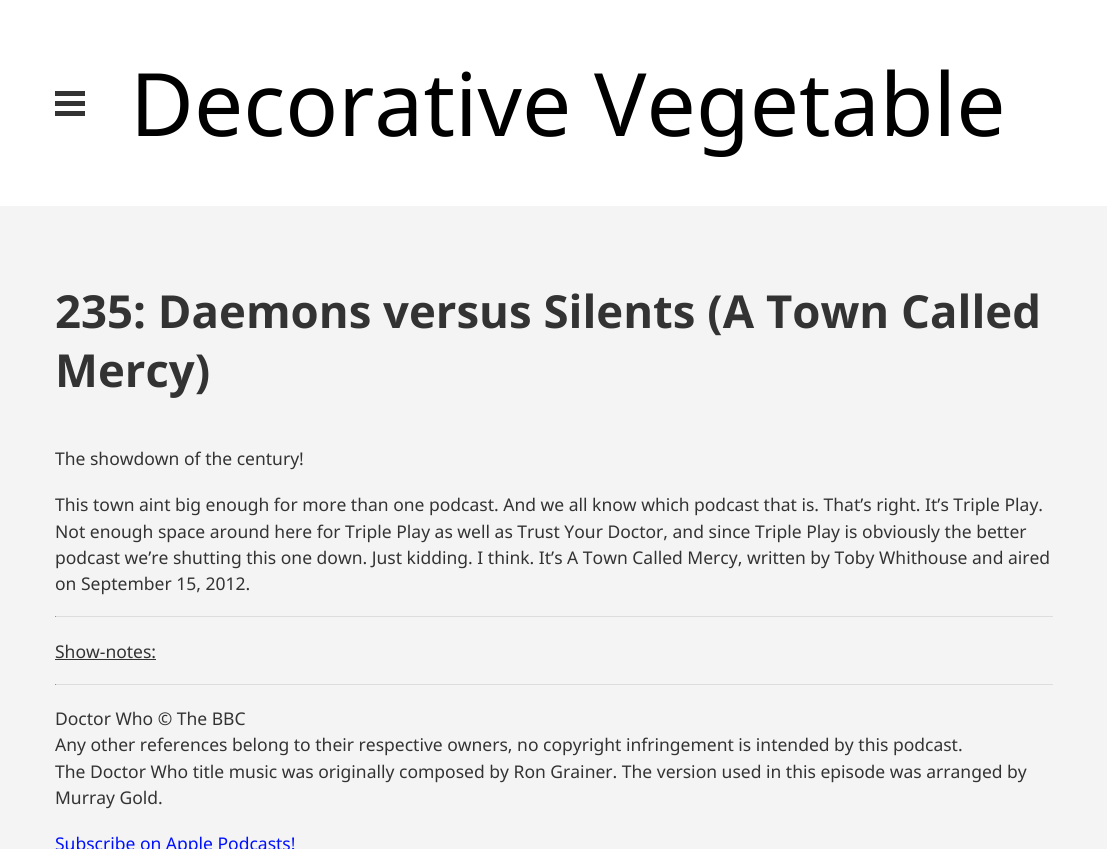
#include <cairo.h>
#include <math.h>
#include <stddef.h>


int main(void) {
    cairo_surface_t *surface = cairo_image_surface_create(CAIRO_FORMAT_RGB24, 1107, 849);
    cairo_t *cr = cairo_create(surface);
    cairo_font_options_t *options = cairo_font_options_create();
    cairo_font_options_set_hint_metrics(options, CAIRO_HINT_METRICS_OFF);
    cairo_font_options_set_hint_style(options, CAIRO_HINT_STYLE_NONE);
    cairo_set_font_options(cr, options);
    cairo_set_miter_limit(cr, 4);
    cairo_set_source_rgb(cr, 0.957, 0.957, 0.957);
    cairo_paint(cr);
    cairo_set_source_rgb(cr, 1, 1, 1);
    cairo_rectangle(cr, 0, 0, 1107, 206);
    cairo_fill(cr);
    cairo_set_source_rgb(cr, 0.2, 0.2, 0.2);
    cairo_rectangle(cr, 55, 91, 30, 5);
    cairo_fill(cr);
    cairo_rectangle(cr, 55, 101, 30, 5);
    cairo_fill(cr);
    cairo_rectangle(cr, 55, 111, 30, 5);
    cairo_fill(cr);
    cairo_select_font_face(cr, "Noto Sans", CAIRO_FONT_SLANT_NORMAL, CAIRO_FONT_WEIGHT_NORMAL);
    cairo_set_font_size(cr, 87.5);
    cairo_set_source_rgb(cr, 0, 0, 0);
    cairo_move_to(cr, 130, 136);
    cairo_show_text(cr, "Decorative Vegetable");
    cairo_select_font_face(cr, "Open Sans", CAIRO_FONT_SLANT_NORMAL, CAIRO_FONT_WEIGHT_BOLD);
    cairo_set_font_size(cr, 45.5);
    cairo_set_source_rgb(cr, 0.2, 0.2, 0.2);
    cairo_move_to(cr, 55, 328);
    cairo_show_text(cr, "235: Daemons versus Silents (A Town Called");
    cairo_move_to(cr, 55, 387);
    cairo_show_text(cr, "Mercy)");
    cairo_select_font_face(cr, "Noto Sans", CAIRO_FONT_SLANT_NORMAL, CAIRO_FONT_WEIGHT_NORMAL);
    cairo_set_font_size(cr, 17.5);
    cairo_move_to(cr, 55, 465);
    cairo_show_text(cr, "The showdown of the century!");
    cairo_move_to(cr, 55, 511);
    cairo_show_text(cr, "This town aint big enough for more than one podcast. And we all know which podcast that is. That’s right. It’s Triple Play.");
    cairo_move_to(cr, 55, 538);
    cairo_show_text(cr, "Not enough space around here for Triple Play as well as Trust Your Doctor, and since Triple Play is obviously the better");
    cairo_move_to(cr, 55, 564);
    cairo_show_text(cr, "podcast we’re shutting this one down. Just kidding. I think. It’s A Town Called Mercy, written by Toby Whithouse and aired");
    cairo_move_to(cr, 55, 590);
    cairo_show_text(cr, "on September 15, 2012.");
    cairo_set_source_rgb(cr, 0.867, 0.867, 0.867);
    cairo_rectangle(cr, 55, 616, 998, 1);
    cairo_fill(cr);
    cairo_set_source_rgb(cr, 0.576, 0.576, 0.576);
    cairo_rectangle(cr, 55, 616, 1, 1);
    cairo_fill(cr);
    cairo_set_source_rgb(cr, 0.2, 0.2, 0.2);
    cairo_move_to(cr, 55, 658);
    cairo_show_text(cr, "Show-notes:");
    cairo_rectangle(cr, 55, 659, 101, 1);
    cairo_fill(cr);
    cairo_set_source_rgb(cr, 0.867, 0.867, 0.867);
    cairo_rectangle(cr, 55, 684, 998, 1);
    cairo_fill(cr);
    cairo_set_source_rgb(cr, 0.576, 0.576, 0.576);
    cairo_rectangle(cr, 55, 684, 1, 1);
    cairo_fill(cr);
    cairo_set_source_rgb(cr, 0.2, 0.2, 0.2);
    cairo_move_to(cr, 55, 725);
    cairo_show_text(cr, "Doctor Who © The BBC");
    cairo_move_to(cr, 55, 751);
    cairo_show_text(cr, "Any other references belong to their respective owners, no copyright infringement is intended by this podcast.");
    cairo_move_to(cr, 55, 778);
    cairo_show_text(cr, "The Doctor Who title music was originally composed by Ron Grainer. The version used in this episode was arranged by");
    cairo_move_to(cr, 55, 804);
    cairo_show_text(cr, "Murray Gold.");
    cairo_set_source_rgb(cr, 0, 0.063, 1);
    cairo_move_to(cr, 55, 850);
    cairo_show_text(cr, "Subscribe on Apple Podcasts!");
    cairo_surface_write_to_png(surface, "page.png");
    cairo_font_options_destroy(options);
    cairo_destroy(cr);
    cairo_surface_destroy(surface);
    return 0;
}
